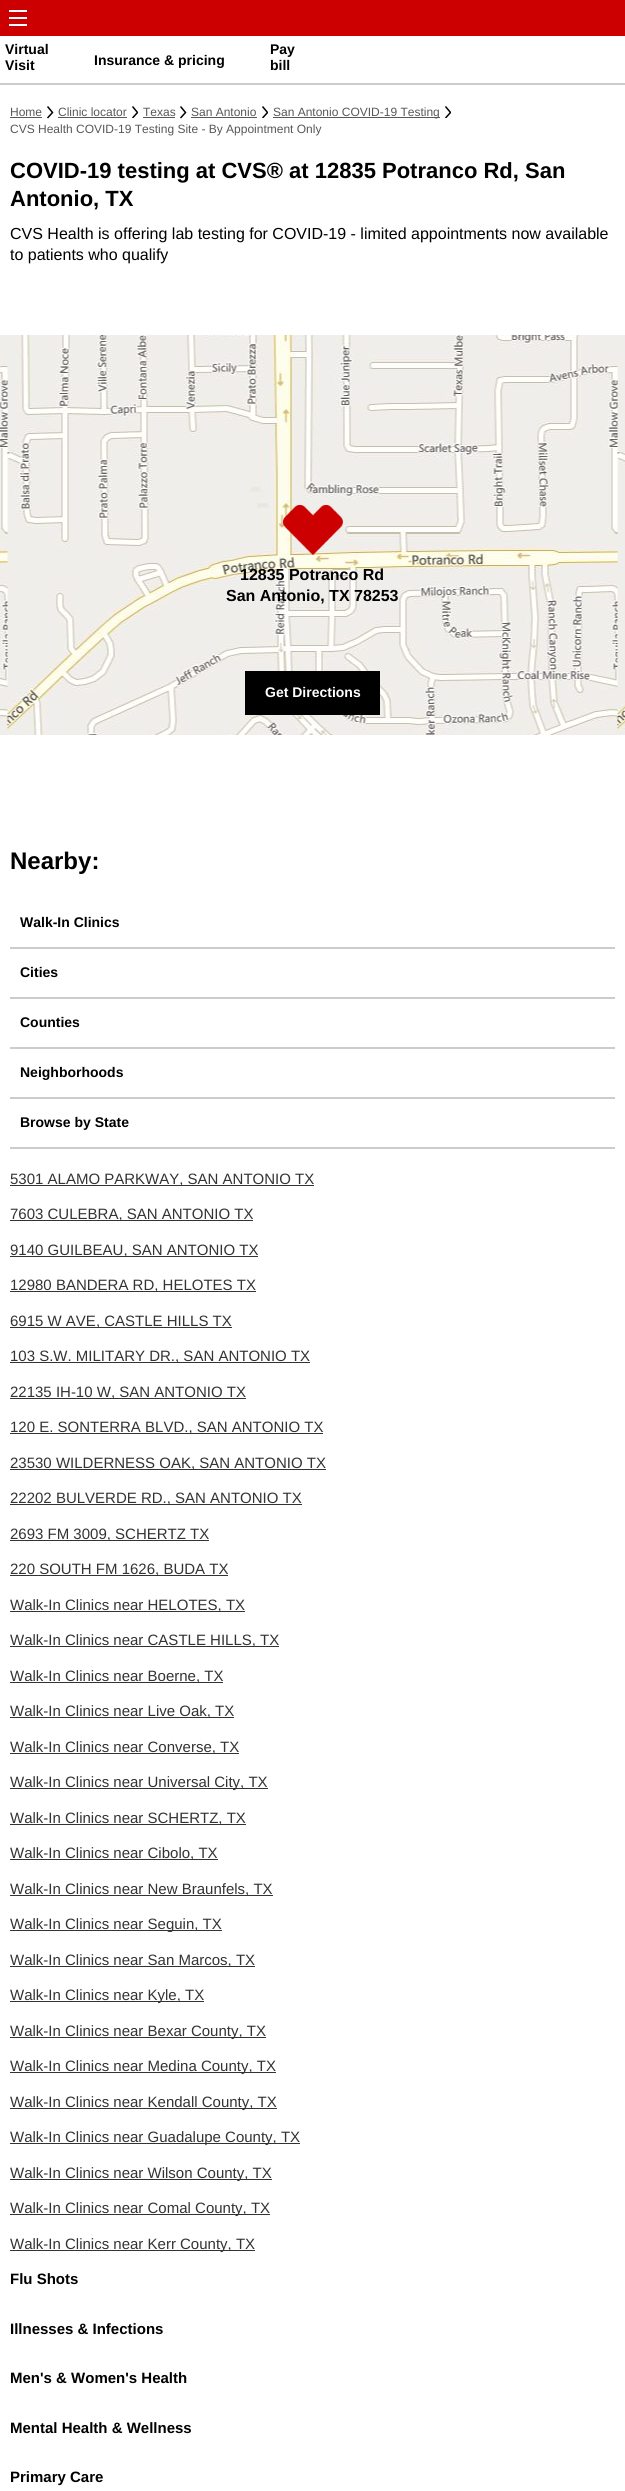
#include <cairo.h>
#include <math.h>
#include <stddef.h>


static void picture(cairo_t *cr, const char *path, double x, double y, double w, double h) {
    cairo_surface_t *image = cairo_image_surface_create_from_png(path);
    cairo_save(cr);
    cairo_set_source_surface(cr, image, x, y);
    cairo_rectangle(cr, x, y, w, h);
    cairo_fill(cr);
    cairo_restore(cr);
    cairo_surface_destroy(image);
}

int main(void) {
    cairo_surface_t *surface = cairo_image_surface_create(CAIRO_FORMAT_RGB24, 625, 2491);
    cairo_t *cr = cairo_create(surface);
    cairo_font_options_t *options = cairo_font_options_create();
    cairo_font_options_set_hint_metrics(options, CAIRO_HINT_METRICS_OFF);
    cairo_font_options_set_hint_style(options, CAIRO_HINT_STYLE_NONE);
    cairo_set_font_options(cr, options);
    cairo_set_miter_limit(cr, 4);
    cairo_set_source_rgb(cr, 1, 1, 1);
    cairo_paint(cr);
    cairo_set_source_rgb(cr, 0.8, 0, 0);
    cairo_rectangle(cr, 0, 0, 625, 36);
    cairo_fill(cr);
    cairo_set_source_rgb(cr, 1, 1, 1);
    cairo_rectangle(cr, 9, 17, 18, 2);
    cairo_fill(cr);
    cairo_rectangle(cr, 9, 10, 18, 2);
    cairo_fill(cr);
    cairo_rectangle(cr, 9, 24, 18, 2);
    cairo_fill(cr);
    cairo_set_source_rgb(cr, 0.8, 0.8, 0.8);
    cairo_rectangle(cr, 0, 83, 625, 2);
    cairo_fill(cr);
    cairo_select_font_face(cr, "Liberation Sans", CAIRO_FONT_SLANT_NORMAL, CAIRO_FONT_WEIGHT_BOLD);
    cairo_set_font_size(cr, 14);
    cairo_set_source_rgb(cr, 0, 0, 0);
    cairo_move_to(cr, 5, 54);
    cairo_show_text(cr, "Virtual");
    cairo_move_to(cr, 5, 70);
    cairo_show_text(cr, "Visit");
    cairo_move_to(cr, 94, 65);
    cairo_show_text(cr, "Insurance & pricing");
    cairo_move_to(cr, 270, 54);
    cairo_show_text(cr, "Pay");
    cairo_move_to(cr, 270, 70);
    cairo_show_text(cr, "bill");
    cairo_select_font_face(cr, "Liberation Sans", CAIRO_FONT_SLANT_NORMAL, CAIRO_FONT_WEIGHT_NORMAL);
    cairo_set_font_size(cr, 12);
    cairo_set_source_rgb(cr, 0.345, 0.345, 0.345);
    cairo_move_to(cr, 10, 116);
    cairo_show_text(cr, "Home");
    cairo_rectangle(cr, 10, 117, 32, 1);
    cairo_fill(cr);
    cairo_new_path(cr);
    cairo_move_to(cr, 47.5, 118);
    cairo_line_to(cr, 52.5, 112.5);
    cairo_line_to(cr, 47.5, 106.5);
    cairo_set_source_rgb(cr, 0, 0, 0);
    cairo_set_line_width(cr, 1.5);
    cairo_stroke(cr);
    cairo_set_source_rgb(cr, 0.345, 0.345, 0.345);
    cairo_move_to(cr, 58, 116);
    cairo_show_text(cr, "Clinic locator");
    cairo_rectangle(cr, 58, 117, 69, 1);
    cairo_fill(cr);
    cairo_save(cr);
    cairo_rectangle(cr, 132, 106, 6, 12);
    cairo_clip(cr);
    cairo_new_path(cr);
    cairo_move_to(cr, 132.5, 118);
    cairo_line_to(cr, 137.5, 112.5);
    cairo_line_to(cr, 132.5, 106.5);
    cairo_set_source_rgb(cr, 0, 0, 0);
    cairo_stroke(cr);
    cairo_restore(cr);
    cairo_move_to(cr, 143, 116);
    cairo_show_text(cr, "Texas");
    cairo_rectangle(cr, 143, 117, 32, 1);
    cairo_fill(cr);
    cairo_new_path(cr);
    cairo_move_to(cr, 180.5, 118);
    cairo_line_to(cr, 185.5, 112.5);
    cairo_line_to(cr, 180.5, 106.5);
    cairo_set_source_rgb(cr, 0, 0, 0);
    cairo_stroke(cr);
    cairo_set_source_rgb(cr, 0.345, 0.345, 0.345);
    cairo_move_to(cr, 191, 116);
    cairo_show_text(cr, "San Antonio");
    cairo_rectangle(cr, 191, 117, 66, 1);
    cairo_fill(cr);
    cairo_save(cr);
    cairo_rectangle(cr, 262, 106, 6, 12);
    cairo_clip(cr);
    cairo_new_path(cr);
    cairo_move_to(cr, 262.5, 118);
    cairo_line_to(cr, 267.5, 112.5);
    cairo_line_to(cr, 262.5, 106.5);
    cairo_set_source_rgb(cr, 0, 0, 0);
    cairo_stroke(cr);
    cairo_restore(cr);
    cairo_rectangle(cr, 273, 117, 167, 1);
    cairo_fill(cr);
    cairo_move_to(cr, 273, 116);
    cairo_show_text(cr, "San Antonio COVID-19 Testing");
    cairo_save(cr);
    cairo_rectangle(cr, 445, 106, 6, 12);
    cairo_clip(cr);
    cairo_new_path(cr);
    cairo_move_to(cr, 445.5, 118);
    cairo_line_to(cr, 450.5, 112.5);
    cairo_line_to(cr, 445.5, 106.5);
    cairo_set_source_rgb(cr, 0, 0, 0);
    cairo_stroke(cr);
    cairo_restore(cr);
    cairo_move_to(cr, 10, 133);
    cairo_show_text(cr, "CVS Health COVID-19 Testing Site - By Appointment Only");
    cairo_select_font_face(cr, "Liberation Sans", CAIRO_FONT_SLANT_NORMAL, CAIRO_FONT_WEIGHT_BOLD);
    cairo_set_font_size(cr, 22);
    cairo_set_source_rgb(cr, 0, 0, 0);
    cairo_move_to(cr, 10, 178);
    cairo_show_text(cr, "COVID-19 testing at CVS® at 12835 Potranco Rd, San");
    cairo_move_to(cr, 10, 206);
    cairo_show_text(cr, "Antonio, TX");
    cairo_select_font_face(cr, "Liberation Sans", CAIRO_FONT_SLANT_NORMAL, CAIRO_FONT_WEIGHT_NORMAL);
    cairo_set_font_size(cr, 16);
    cairo_move_to(cr, 10, 239);
    cairo_show_text(cr, "CVS Health is offering lab testing for COVID-19 - limited appointments now available");
    cairo_move_to(cr, 10, 260);
    cairo_show_text(cr, "to patients who qualify");
    picture(cr, "img1.png", 0, 335, 625, 400);
    picture(cr, "img2.png", 283, 505, 60, 50);
    cairo_select_font_face(cr, "Liberation Sans", CAIRO_FONT_SLANT_NORMAL, CAIRO_FONT_WEIGHT_BOLD);
    cairo_move_to(cr, 240, 580);
    cairo_show_text(cr, "12835 Potranco Rd");
    cairo_move_to(cr, 226, 601);
    cairo_show_text(cr, "San Antonio, TX 78253");
    cairo_rectangle(cr, 245, 671, 135, 44);
    cairo_fill(cr);
    cairo_set_font_size(cr, 14);
    cairo_set_source_rgb(cr, 1, 1, 1);
    cairo_move_to(cr, 265, 697);
    cairo_show_text(cr, "Get Directions");
    cairo_set_font_size(cr, 24);
    cairo_set_source_rgb(cr, 0, 0, 0);
    cairo_move_to(cr, 10, 869);
    cairo_show_text(cr, "Nearby:");
    cairo_set_source_rgb(cr, 0.8, 0.8, 0.8);
    cairo_rectangle(cr, 10, 1147, 605, 2);
    cairo_fill(cr);
    cairo_set_font_size(cr, 14);
    cairo_set_source_rgb(cr, 0, 0, 0);
    cairo_move_to(cr, 20, 927);
    cairo_show_text(cr, "Walk-In Clinics");
    cairo_set_source_rgb(cr, 0.8, 0.8, 0.8);
    cairo_rectangle(cr, 10, 947, 605, 2);
    cairo_fill(cr);
    cairo_set_source_rgb(cr, 0, 0, 0);
    cairo_move_to(cr, 20, 977);
    cairo_show_text(cr, "Cities");
    cairo_set_source_rgb(cr, 0.8, 0.8, 0.8);
    cairo_rectangle(cr, 10, 997, 605, 2);
    cairo_fill(cr);
    cairo_set_source_rgb(cr, 0, 0, 0);
    cairo_move_to(cr, 20, 1027);
    cairo_show_text(cr, "Counties");
    cairo_set_source_rgb(cr, 0.8, 0.8, 0.8);
    cairo_rectangle(cr, 10, 1047, 605, 2);
    cairo_fill(cr);
    cairo_set_source_rgb(cr, 0, 0, 0);
    cairo_move_to(cr, 20, 1077);
    cairo_show_text(cr, "Neighborhoods");
    cairo_set_source_rgb(cr, 0.8, 0.8, 0.8);
    cairo_rectangle(cr, 10, 1097, 605, 2);
    cairo_fill(cr);
    cairo_set_source_rgb(cr, 0, 0, 0);
    cairo_move_to(cr, 20, 1127);
    cairo_show_text(cr, "Browse by State");
    cairo_set_source_rgb(cr, 0.2, 0.2, 0.2);
    cairo_rectangle(cr, 10, 1185, 304, 1);
    cairo_fill(cr);
    cairo_select_font_face(cr, "Liberation Sans", CAIRO_FONT_SLANT_NORMAL, CAIRO_FONT_WEIGHT_NORMAL);
    cairo_set_font_size(cr, 15);
    cairo_move_to(cr, 10, 1184);
    cairo_show_text(cr, "5301 ALAMO PARKWAY, SAN ANTONIO TX");
    cairo_rectangle(cr, 10, 1220, 243, 1);
    cairo_fill(cr);
    cairo_move_to(cr, 10, 1219);
    cairo_show_text(cr, "7603 CULEBRA, SAN ANTONIO TX");
    cairo_rectangle(cr, 10, 1256, 248, 1);
    cairo_fill(cr);
    cairo_move_to(cr, 10, 1255);
    cairo_show_text(cr, "9140 GUILBEAU, SAN ANTONIO TX");
    cairo_rectangle(cr, 10, 1291, 246, 1);
    cairo_fill(cr);
    cairo_move_to(cr, 10, 1290);
    cairo_show_text(cr, "12980 BANDERA RD, HELOTES TX");
    cairo_rectangle(cr, 10, 1327, 222, 1);
    cairo_fill(cr);
    cairo_move_to(cr, 10, 1326);
    cairo_show_text(cr, "6915 W AVE, CASTLE HILLS TX");
    cairo_rectangle(cr, 10, 1362, 300, 1);
    cairo_fill(cr);
    cairo_move_to(cr, 10, 1361);
    cairo_show_text(cr, "103 S.W. MILITARY DR., SAN ANTONIO TX");
    cairo_rectangle(cr, 10, 1398, 236, 1);
    cairo_fill(cr);
    cairo_move_to(cr, 10, 1397);
    cairo_show_text(cr, "22135 IH-10 W, SAN ANTONIO TX");
    cairo_rectangle(cr, 10, 1433, 313, 1);
    cairo_fill(cr);
    cairo_move_to(cr, 10, 1432);
    cairo_show_text(cr, "120 E. SONTERRA BLVD., SAN ANTONIO TX");
    cairo_rectangle(cr, 10, 1469, 316, 1);
    cairo_fill(cr);
    cairo_move_to(cr, 10, 1468);
    cairo_show_text(cr, "23530 WILDERNESS OAK, SAN ANTONIO TX");
    cairo_rectangle(cr, 10, 1504, 292, 1);
    cairo_fill(cr);
    cairo_move_to(cr, 10, 1503);
    cairo_show_text(cr, "22202 BULVERDE RD., SAN ANTONIO TX");
    cairo_rectangle(cr, 10, 1540, 199, 1);
    cairo_fill(cr);
    cairo_move_to(cr, 10, 1539);
    cairo_show_text(cr, "2693 FM 3009, SCHERTZ TX");
    cairo_rectangle(cr, 10, 1575, 218, 1);
    cairo_fill(cr);
    cairo_move_to(cr, 10, 1574);
    cairo_show_text(cr, "220 SOUTH FM 1626, BUDA TX");
    cairo_rectangle(cr, 10, 1611, 235, 1);
    cairo_fill(cr);
    cairo_move_to(cr, 10, 1610);
    cairo_show_text(cr, "Walk-In Clinics near HELOTES, TX");
    cairo_rectangle(cr, 10, 1646, 269, 1);
    cairo_fill(cr);
    cairo_move_to(cr, 10, 1645);
    cairo_show_text(cr, "Walk-In Clinics near CASTLE HILLS, TX");
    cairo_rectangle(cr, 10, 1682, 213, 1);
    cairo_fill(cr);
    cairo_move_to(cr, 10, 1681);
    cairo_show_text(cr, "Walk-In Clinics near Boerne, TX");
    cairo_rectangle(cr, 10, 1717, 224, 1);
    cairo_fill(cr);
    cairo_move_to(cr, 10, 1716);
    cairo_show_text(cr, "Walk-In Clinics near Live Oak, TX");
    cairo_rectangle(cr, 10, 1753, 229, 1);
    cairo_fill(cr);
    cairo_move_to(cr, 10, 1752);
    cairo_show_text(cr, "Walk-In Clinics near Converse, TX");
    cairo_rectangle(cr, 10, 1788, 258, 1);
    cairo_fill(cr);
    cairo_move_to(cr, 10, 1787);
    cairo_show_text(cr, "Walk-In Clinics near Universal City, TX");
    cairo_rectangle(cr, 10, 1824, 236, 1);
    cairo_fill(cr);
    cairo_move_to(cr, 10, 1823);
    cairo_show_text(cr, "Walk-In Clinics near SCHERTZ, TX");
    cairo_rectangle(cr, 10, 1859, 208, 1);
    cairo_fill(cr);
    cairo_move_to(cr, 10, 1858);
    cairo_show_text(cr, "Walk-In Clinics near Cibolo, TX");
    cairo_rectangle(cr, 10, 1895, 263, 1);
    cairo_fill(cr);
    cairo_move_to(cr, 10, 1894);
    cairo_show_text(cr, "Walk-In Clinics near New Braunfels, TX");
    cairo_rectangle(cr, 10, 1930, 212, 1);
    cairo_fill(cr);
    cairo_move_to(cr, 10, 1929);
    cairo_show_text(cr, "Walk-In Clinics near Seguin, TX");
    cairo_rectangle(cr, 10, 1966, 245, 1);
    cairo_fill(cr);
    cairo_move_to(cr, 10, 1965);
    cairo_show_text(cr, "Walk-In Clinics near San Marcos, TX");
    cairo_rectangle(cr, 10, 2001, 194, 1);
    cairo_fill(cr);
    cairo_move_to(cr, 10, 2000);
    cairo_show_text(cr, "Walk-In Clinics near Kyle, TX");
    cairo_rectangle(cr, 10, 2037, 256, 1);
    cairo_fill(cr);
    cairo_move_to(cr, 10, 2036);
    cairo_show_text(cr, "Walk-In Clinics near Bexar County, TX");
    cairo_rectangle(cr, 10, 2072, 266, 1);
    cairo_fill(cr);
    cairo_move_to(cr, 10, 2071);
    cairo_show_text(cr, "Walk-In Clinics near Medina County, TX");
    cairo_rectangle(cr, 10, 2108, 267, 1);
    cairo_fill(cr);
    cairo_move_to(cr, 10, 2107);
    cairo_show_text(cr, "Walk-In Clinics near Kendall County, TX");
    cairo_rectangle(cr, 10, 2143, 290, 1);
    cairo_fill(cr);
    cairo_move_to(cr, 10, 2142);
    cairo_show_text(cr, "Walk-In Clinics near Guadalupe County, TX");
    cairo_rectangle(cr, 10, 2179, 262, 1);
    cairo_fill(cr);
    cairo_move_to(cr, 10, 2178);
    cairo_show_text(cr, "Walk-In Clinics near Wilson County, TX");
    cairo_rectangle(cr, 10, 2214, 260, 1);
    cairo_fill(cr);
    cairo_move_to(cr, 10, 2213);
    cairo_show_text(cr, "Walk-In Clinics near Comal County, TX");
    cairo_rectangle(cr, 10, 2250, 245, 1);
    cairo_fill(cr);
    cairo_move_to(cr, 10, 2249);
    cairo_show_text(cr, "Walk-In Clinics near Kerr County, TX");
    cairo_select_font_face(cr, "Liberation Sans", CAIRO_FONT_SLANT_NORMAL, CAIRO_FONT_WEIGHT_BOLD);
    cairo_set_source_rgb(cr, 0, 0, 0);
    cairo_move_to(cr, 10, 2284);
    cairo_show_text(cr, "Flu Shots");
    cairo_move_to(cr, 10, 2334);
    cairo_show_text(cr, "Illnesses & Infections");
    cairo_move_to(cr, 10, 2383);
    cairo_show_text(cr, "Men's & Women's Health");
    cairo_move_to(cr, 10, 2433);
    cairo_show_text(cr, "Mental Health & Wellness");
    cairo_move_to(cr, 10, 2482);
    cairo_show_text(cr, "Primary Care");
    cairo_surface_write_to_png(surface, "page.png");
    cairo_font_options_destroy(options);
    cairo_destroy(cr);
    cairo_surface_destroy(surface);
    return 0;
}
